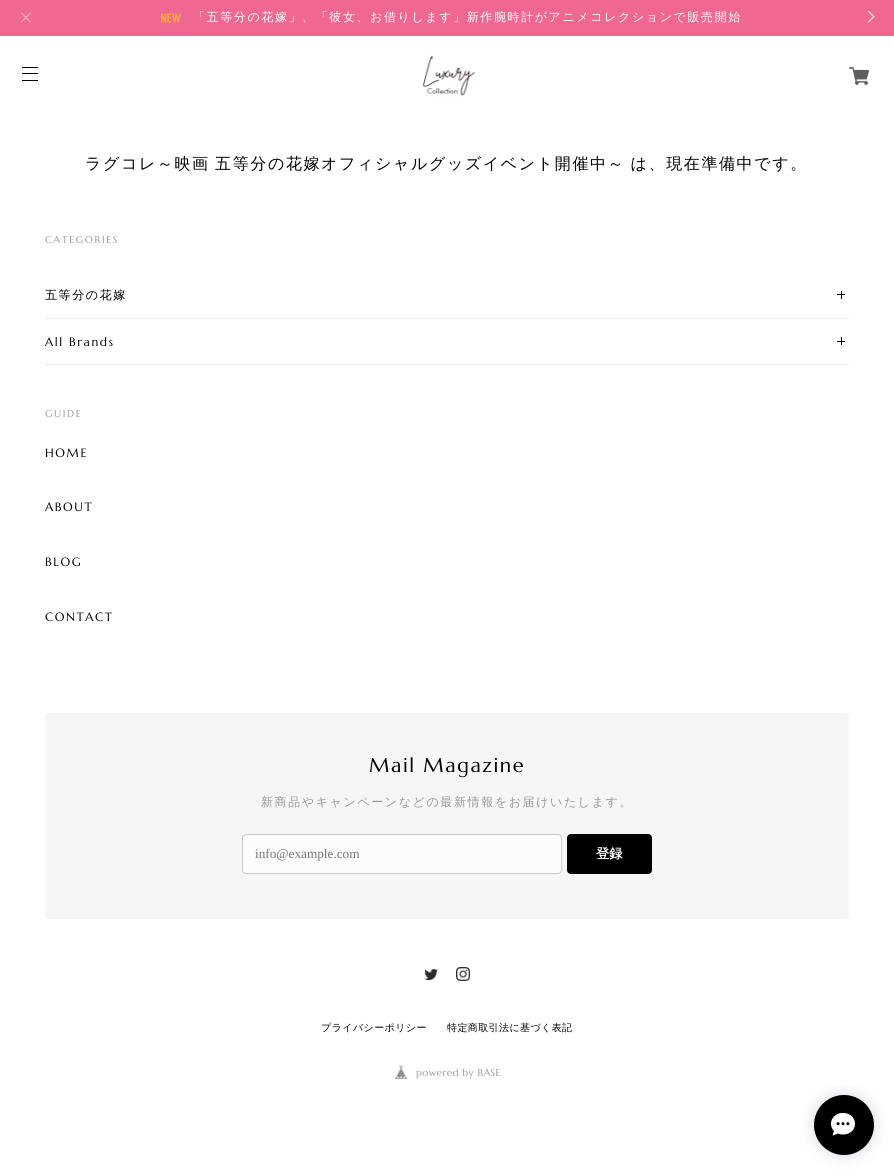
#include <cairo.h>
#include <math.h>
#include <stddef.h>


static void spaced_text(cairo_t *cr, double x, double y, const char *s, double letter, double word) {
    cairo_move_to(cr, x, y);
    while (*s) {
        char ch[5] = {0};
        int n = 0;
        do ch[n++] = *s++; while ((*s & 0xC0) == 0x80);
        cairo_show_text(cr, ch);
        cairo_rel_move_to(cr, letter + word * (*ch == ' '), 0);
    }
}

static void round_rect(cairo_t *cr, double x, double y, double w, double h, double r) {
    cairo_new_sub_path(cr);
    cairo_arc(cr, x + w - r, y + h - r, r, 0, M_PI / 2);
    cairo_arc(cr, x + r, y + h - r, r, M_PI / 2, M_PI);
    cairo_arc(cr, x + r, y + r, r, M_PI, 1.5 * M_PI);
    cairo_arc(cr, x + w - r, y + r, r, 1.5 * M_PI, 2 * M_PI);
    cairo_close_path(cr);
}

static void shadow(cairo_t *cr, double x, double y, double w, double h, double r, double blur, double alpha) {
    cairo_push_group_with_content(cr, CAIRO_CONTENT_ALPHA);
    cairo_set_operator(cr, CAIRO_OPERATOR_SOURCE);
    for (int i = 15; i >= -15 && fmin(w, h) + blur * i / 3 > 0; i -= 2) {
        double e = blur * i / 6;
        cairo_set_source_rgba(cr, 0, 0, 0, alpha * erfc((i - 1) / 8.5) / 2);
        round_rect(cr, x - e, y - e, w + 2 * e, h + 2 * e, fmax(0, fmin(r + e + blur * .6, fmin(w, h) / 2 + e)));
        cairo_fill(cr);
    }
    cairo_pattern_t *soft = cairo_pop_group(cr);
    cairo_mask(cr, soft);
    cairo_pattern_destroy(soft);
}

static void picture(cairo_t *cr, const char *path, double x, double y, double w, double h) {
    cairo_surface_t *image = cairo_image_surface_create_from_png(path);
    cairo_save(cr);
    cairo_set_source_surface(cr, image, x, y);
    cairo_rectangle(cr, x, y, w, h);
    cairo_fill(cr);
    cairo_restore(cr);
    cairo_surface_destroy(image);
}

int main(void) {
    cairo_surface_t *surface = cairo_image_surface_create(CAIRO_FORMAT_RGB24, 894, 1175);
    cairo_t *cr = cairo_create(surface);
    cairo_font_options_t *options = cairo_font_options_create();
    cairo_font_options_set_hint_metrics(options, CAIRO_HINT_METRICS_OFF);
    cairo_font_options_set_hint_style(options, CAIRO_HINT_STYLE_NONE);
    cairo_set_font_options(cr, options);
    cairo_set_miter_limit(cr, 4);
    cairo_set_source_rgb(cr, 1, 1, 1);
    cairo_paint(cr);
    cairo_set_source_rgb(cr, 0.941, 0.408, 0.573);
    cairo_rectangle(cr, 0, 0, 894, 36);
    cairo_fill(cr);
    picture(cr, "img1.png", 21, 12, 10, 11);
    picture(cr, "img2.png", 161, 13, 20, 10);
    cairo_select_font_face(cr, "WenQuanYi Zen Hei Medium", CAIRO_FONT_SLANT_NORMAL, CAIRO_FONT_WEIGHT_NORMAL);
    cairo_set_font_size(cr, 12);
    cairo_set_source_rgb(cr, 1, 1, 1);
    spaced_text(cr, 193, 21, "「五等分の花嫁」、「彼女、お借りします」新作腕時計がアニメコレクションで販売開始", 1.6, 0);
    picture(cr, "img3.png", 867, 10, 8, 13);
    cairo_set_source_rgb(cr, 0, 0, 0);
    cairo_rectangle(cr, 22, 67, 16, 1);
    cairo_fill(cr);
    cairo_rectangle(cr, 22, 73, 16, 1);
    cairo_fill(cr);
    cairo_rectangle(cr, 22, 80, 16, 1);
    cairo_fill(cr);
    picture(cr, "img4.png", 423, 55, 53, 41);
    picture(cr, "img5.png", 849, 66, 20, 20);
    cairo_set_font_size(cr, 16);
    spaced_text(cr, 85, 169, "ラグコレ～映画 五等分の花嫁オフィシャルグッズイベント開催中～ は、現在準備中です。", 1.6, -1);
    cairo_select_font_face(cr, "Marcellus", CAIRO_FONT_SLANT_NORMAL, CAIRO_FONT_WEIGHT_NORMAL);
    cairo_set_font_size(cr, 10);
    cairo_set_source_rgb(cr, 0.6, 0.6, 0.6);
    spaced_text(cr, 45, 243, "CATEGORIES", 1.6, 0);
    cairo_set_source_rgb(cr, 0.925, 0.925, 0.925);
    cairo_rectangle(cr, 45, 318, 804, 1);
    cairo_fill(cr);
    cairo_select_font_face(cr, "WenQuanYi Zen Hei Medium", CAIRO_FONT_SLANT_NORMAL, CAIRO_FONT_WEIGHT_NORMAL);
    cairo_set_font_size(cr, 12);
    cairo_set_source_rgb(cr, 0, 0, 0);
    spaced_text(cr, 45, 299, "五等分の花嫁", 1.6, 0);
    cairo_rectangle(cr, 837, 294, 8, 1);
    cairo_fill(cr);
    cairo_rectangle(cr, 841, 291, 1, 8);
    cairo_fill(cr);
    cairo_set_source_rgb(cr, 0.925, 0.925, 0.925);
    cairo_rectangle(cr, 45, 364, 804, 1);
    cairo_fill(cr);
    cairo_select_font_face(cr, "Marcellus", CAIRO_FONT_SLANT_NORMAL, CAIRO_FONT_WEIGHT_NORMAL);
    cairo_set_source_rgb(cr, 0, 0, 0);
    spaced_text(cr, 45, 346, "All Brands", 1.6, 0);
    cairo_rectangle(cr, 837, 341, 8, 1);
    cairo_fill(cr);
    cairo_rectangle(cr, 841, 337, 1, 8);
    cairo_fill(cr);
    cairo_set_font_size(cr, 10);
    cairo_set_source_rgb(cr, 0.6, 0.6, 0.6);
    spaced_text(cr, 45, 417, "GUIDE", 1.6, 0);
    cairo_set_font_size(cr, 12);
    cairo_set_source_rgb(cr, 0, 0, 0);
    spaced_text(cr, 45, 457, "HOME", 1.6, 0);
    spaced_text(cr, 45, 511, "ABOUT", 1.6, 0);
    spaced_text(cr, 45, 566, "BLOG", 1.6, 0);
    spaced_text(cr, 45, 621, "CONTACT", 1.6, 0);
    cairo_set_source_rgb(cr, 0.961, 0.961, 0.961);
    round_rect(cr, 45, 713, 804, 206, 4);
    cairo_fill(cr);
    cairo_set_font_size(cr, 20);
    cairo_set_source_rgb(cr, 0, 0, 0);
    spaced_text(cr, 369, 772, "Mail Magazine", 1.6, 0);
    cairo_select_font_face(cr, "WenQuanYi Zen Hei Medium", CAIRO_FONT_SLANT_NORMAL, CAIRO_FONT_WEIGHT_NORMAL);
    cairo_set_font_size(cr, 12);
    cairo_set_source_rgb(cr, 0.6, 0.6, 0.6);
    spaced_text(cr, 261, 806, "新商品やキャンペーンなどの最新情報をお届けいたします。", 1.6, 0);
    cairo_set_source_rgb(cr, 0.988, 0.988, 0.992);
    round_rect(cr, 242.5, 834.5, 319, 39, 3.5);
    cairo_fill_preserve(cr);
    cairo_set_source_rgb(cr, 0.8, 0.8, 0.8);
    cairo_set_line_width(cr, 1);
    cairo_stroke(cr);
    cairo_select_font_face(cr, "Liberation Serif", CAIRO_FONT_SLANT_NORMAL, CAIRO_FONT_WEIGHT_NORMAL);
    cairo_set_font_size(cr, 13.25);
    cairo_set_source_rgb(cr, 0.459, 0.459, 0.459);
    cairo_move_to(cr, 255, 858);
    cairo_show_text(cr, "info@example.com");
    cairo_set_source_rgb(cr, 0, 0, 0);
    round_rect(cr, 567, 834, 85, 40, 4);
    cairo_fill(cr);
    cairo_select_font_face(cr, "WenQuanYi Zen Hei", CAIRO_FONT_SLANT_NORMAL, CAIRO_FONT_WEIGHT_BOLD);
    cairo_set_source_rgb(cr, 1, 1, 1);
    cairo_move_to(cr, 596, 858);
    cairo_show_text(cr, "登録");
    picture(cr, "img6.png", 424, 968, 14, 13);
    picture(cr, "img7.png", 456, 967, 14, 14);
    cairo_select_font_face(cr, "WenQuanYi Zen Hei Medium", CAIRO_FONT_SLANT_NORMAL, CAIRO_FONT_WEIGHT_NORMAL);
    cairo_set_font_size(cr, 10);
    cairo_set_source_rgb(cr, 0, 0, 0);
    spaced_text(cr, 321, 1031, "プライバシーポリシー", 0.4, 0);
    spaced_text(cr, 447, 1031, "特定商取引法に基づく表記", 0.4, 0);
    picture(cr, "img8.png", 395, 1065, 13, 14);
    cairo_select_font_face(cr, "Marcellus", CAIRO_FONT_SLANT_NORMAL, CAIRO_FONT_WEIGHT_NORMAL);
    cairo_set_source_rgb(cr, 0.6, 0.6, 0.6);
    spaced_text(cr, 416, 1076, "powered by BASE", 0.4, 0);
    cairo_set_source_rgb(cr, 0.2, 0.259, 0.345);
    shadow(cr, 814, 1095, 60, 60, 30, 7.5, 0.2);
    cairo_set_source_rgb(cr, 0, 0, 0);
    cairo_arc(cr, 844, 1125, 30, 0, 2 * M_PI);
    cairo_fill(cr);
    picture(cr, "img9.png", 831, 1112, 24, 24);
    cairo_surface_write_to_png(surface, "page.png");
    cairo_font_options_destroy(options);
    cairo_destroy(cr);
    cairo_surface_destroy(surface);
    return 0;
}
